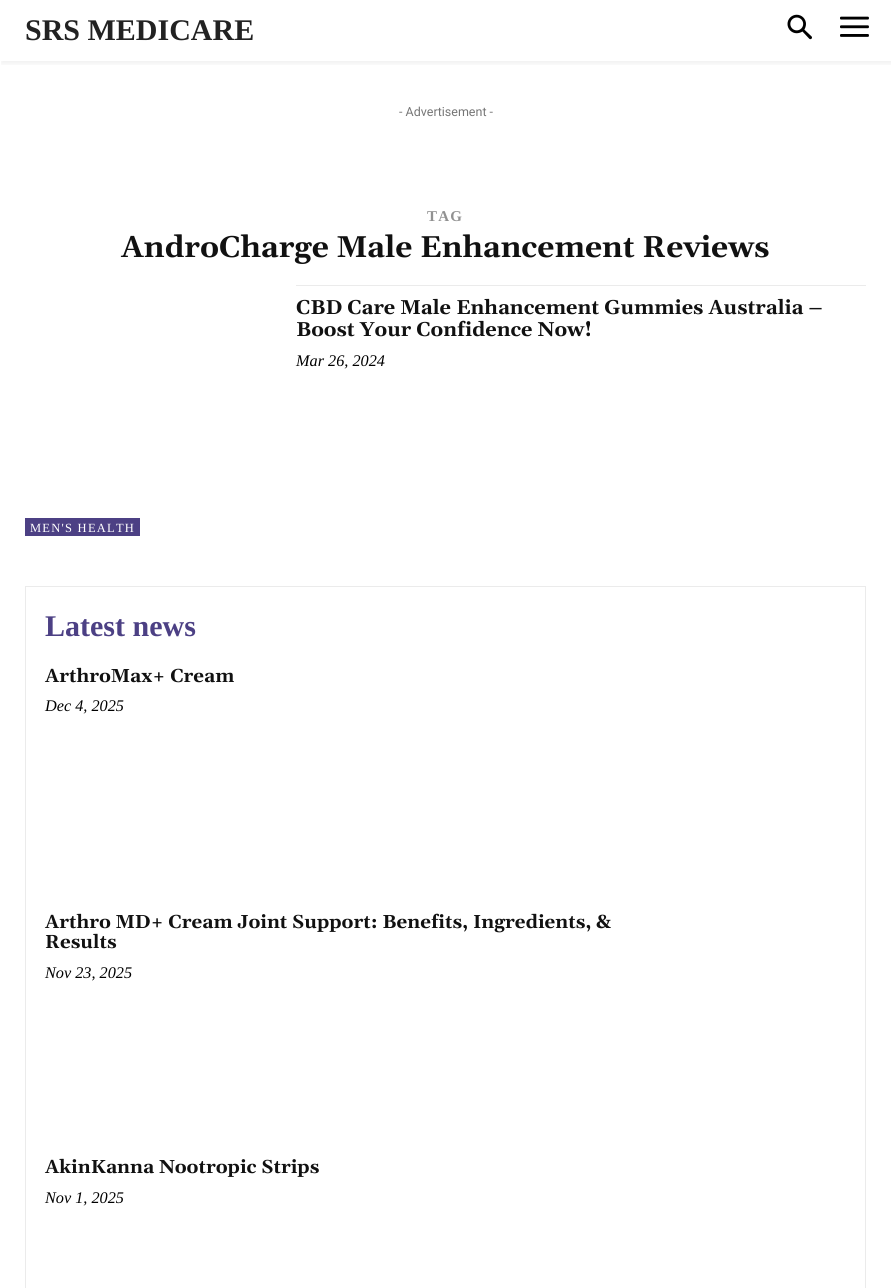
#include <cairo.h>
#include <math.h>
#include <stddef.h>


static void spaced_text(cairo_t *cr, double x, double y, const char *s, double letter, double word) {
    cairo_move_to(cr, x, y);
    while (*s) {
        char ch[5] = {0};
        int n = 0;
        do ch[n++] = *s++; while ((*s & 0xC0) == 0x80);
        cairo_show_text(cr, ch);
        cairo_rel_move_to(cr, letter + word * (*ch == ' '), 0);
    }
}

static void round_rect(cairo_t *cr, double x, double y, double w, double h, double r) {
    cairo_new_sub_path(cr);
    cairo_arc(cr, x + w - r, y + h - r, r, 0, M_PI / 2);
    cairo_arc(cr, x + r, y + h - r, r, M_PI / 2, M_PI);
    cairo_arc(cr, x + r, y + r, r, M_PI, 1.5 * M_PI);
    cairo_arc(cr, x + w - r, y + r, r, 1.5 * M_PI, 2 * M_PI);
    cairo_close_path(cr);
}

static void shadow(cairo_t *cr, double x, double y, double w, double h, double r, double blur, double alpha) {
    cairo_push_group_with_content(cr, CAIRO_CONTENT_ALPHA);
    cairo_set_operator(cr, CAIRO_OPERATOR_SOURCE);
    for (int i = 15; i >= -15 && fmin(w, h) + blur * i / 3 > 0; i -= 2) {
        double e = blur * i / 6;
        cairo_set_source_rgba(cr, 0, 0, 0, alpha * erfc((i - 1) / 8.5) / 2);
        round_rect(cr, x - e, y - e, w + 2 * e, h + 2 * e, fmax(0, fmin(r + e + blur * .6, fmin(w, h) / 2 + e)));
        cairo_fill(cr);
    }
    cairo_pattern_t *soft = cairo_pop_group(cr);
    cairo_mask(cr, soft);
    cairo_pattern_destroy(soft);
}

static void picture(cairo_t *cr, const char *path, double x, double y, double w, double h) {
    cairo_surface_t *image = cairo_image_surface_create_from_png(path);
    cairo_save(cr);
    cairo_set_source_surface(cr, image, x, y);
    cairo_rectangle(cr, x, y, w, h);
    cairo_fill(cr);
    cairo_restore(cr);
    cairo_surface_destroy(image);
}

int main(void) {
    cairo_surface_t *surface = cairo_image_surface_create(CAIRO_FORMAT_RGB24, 891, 1288);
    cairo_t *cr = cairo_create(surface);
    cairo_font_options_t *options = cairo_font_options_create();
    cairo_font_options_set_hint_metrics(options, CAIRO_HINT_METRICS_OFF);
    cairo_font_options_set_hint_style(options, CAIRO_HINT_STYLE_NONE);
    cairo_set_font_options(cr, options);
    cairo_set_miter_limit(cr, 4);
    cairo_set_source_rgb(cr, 1, 1, 1);
    cairo_paint(cr);
    picture(cr, "img1.png", 787, 14, 25, 26);
    picture(cr, "img2.png", 840, 16, 29, 21);
    cairo_save(cr);
    cairo_rectangle(cr, 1, 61, 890, 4);
    cairo_clip(cr);
    cairo_set_source_rgb(cr, 0, 0, 0);
    shadow(cr, 1, 3, 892, 61, 0, 2.5, 0.06);
    cairo_restore(cr);
    cairo_select_font_face(cr, "Liberation Serif", CAIRO_FONT_SLANT_NORMAL, CAIRO_FONT_WEIGHT_BOLD);
    cairo_set_font_size(cr, 30);
    cairo_set_source_rgb(cr, 0.133, 0.133, 0.133);
    cairo_move_to(cr, 25, 40);
    cairo_show_text(cr, "SRS MEDICARE");
    cairo_select_font_face(cr, "Roboto", CAIRO_FONT_SLANT_NORMAL, CAIRO_FONT_WEIGHT_NORMAL);
    cairo_set_font_size(cr, 12.5);
    cairo_set_source_rgb(cr, 0.463, 0.463, 0.463);
    cairo_move_to(cr, 399, 116);
    cairo_show_text(cr, "- Advertisement -");
    cairo_select_font_face(cr, "Liberation Serif", CAIRO_FONT_SLANT_NORMAL, CAIRO_FONT_WEIGHT_BOLD);
    cairo_set_font_size(cr, 15);
    cairo_set_source_rgb(cr, 0.569, 0.569, 0.569);
    spaced_text(cr, 427, 221, "TAG", 1.25, 0);
    cairo_select_font_face(cr, "Gelasio", CAIRO_FONT_SLANT_NORMAL, CAIRO_FONT_WEIGHT_BOLD);
    cairo_set_font_size(cr, 30);
    cairo_set_source_rgb(cr, 0.067, 0.067, 0.067);
    cairo_move_to(cr, 121, 257);
    cairo_show_text(cr, "AndroCharge Male Enhancement Reviews");
    cairo_set_source_rgb(cr, 0.918, 0.918, 0.918);
    cairo_rectangle(cr, 296, 285, 570, 1);
    cairo_fill(cr);
    cairo_set_font_size(cr, 20);
    cairo_set_source_rgb(cr, 0.067, 0.067, 0.067);
    cairo_move_to(cr, 296, 314);
    cairo_show_text(cr, "CBD Care Male Enhancement Gummies Australia –");
    cairo_move_to(cr, 296, 336);
    cairo_show_text(cr, "Boost Your Confidence Now!");
    cairo_select_font_face(cr, "Liberation Serif", CAIRO_FONT_SLANT_ITALIC, CAIRO_FONT_WEIGHT_NORMAL);
    cairo_set_font_size(cr, 16.25);
    cairo_set_source_rgb(cr, 0, 0, 0);
    cairo_move_to(cr, 296, 366);
    cairo_show_text(cr, "Mar 26, 2024");
    cairo_set_source_rgb(cr, 0.298, 0.251, 0.518);
    cairo_rectangle(cr, 25, 518, 115, 18);
    cairo_fill(cr);
    cairo_select_font_face(cr, "Liberation Serif", CAIRO_FONT_SLANT_NORMAL, CAIRO_FONT_WEIGHT_NORMAL);
    cairo_set_font_size(cr, 12.5);
    cairo_set_source_rgb(cr, 1, 1, 1);
    spaced_text(cr, 30, 532, "MEN'S HEALTH", 1.25, 0);
    cairo_rectangle(cr, 25.5, 586.5, 840, 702);
    cairo_set_source_rgb(cr, 0.918, 0.918, 0.918);
    cairo_set_line_width(cr, 1);
    cairo_stroke(cr);
    cairo_select_font_face(cr, "Liberation Serif", CAIRO_FONT_SLANT_NORMAL, CAIRO_FONT_WEIGHT_BOLD);
    cairo_set_font_size(cr, 30);
    cairo_set_source_rgb(cr, 0.298, 0.251, 0.518);
    cairo_move_to(cr, 45, 636);
    cairo_show_text(cr, "Latest news");
    cairo_select_font_face(cr, "Gelasio", CAIRO_FONT_SLANT_NORMAL, CAIRO_FONT_WEIGHT_BOLD);
    cairo_set_font_size(cr, 18.75);
    cairo_set_source_rgb(cr, 0.067, 0.067, 0.067);
    cairo_move_to(cr, 45, 682);
    cairo_show_text(cr, "ArthroMax+ Cream");
    cairo_select_font_face(cr, "Liberation Serif", CAIRO_FONT_SLANT_ITALIC, CAIRO_FONT_WEIGHT_NORMAL);
    cairo_set_font_size(cr, 16.25);
    cairo_set_source_rgb(cr, 0, 0, 0);
    cairo_move_to(cr, 45, 711);
    cairo_show_text(cr, "Dec 4, 2025");
    cairo_select_font_face(cr, "Gelasio", CAIRO_FONT_SLANT_NORMAL, CAIRO_FONT_WEIGHT_BOLD);
    cairo_set_font_size(cr, 18.75);
    cairo_set_source_rgb(cr, 0.067, 0.067, 0.067);
    cairo_move_to(cr, 45, 928);
    cairo_show_text(cr, "Arthro MD+ Cream Joint Support: Benefits, Ingredients, &");
    cairo_move_to(cr, 45, 948);
    cairo_show_text(cr, "Results");
    cairo_select_font_face(cr, "Liberation Serif", CAIRO_FONT_SLANT_ITALIC, CAIRO_FONT_WEIGHT_NORMAL);
    cairo_set_font_size(cr, 16.25);
    cairo_set_source_rgb(cr, 0, 0, 0);
    cairo_move_to(cr, 45, 978);
    cairo_show_text(cr, "Nov 23, 2025");
    cairo_select_font_face(cr, "Gelasio", CAIRO_FONT_SLANT_NORMAL, CAIRO_FONT_WEIGHT_BOLD);
    cairo_set_font_size(cr, 18.75);
    cairo_set_source_rgb(cr, 0.067, 0.067, 0.067);
    cairo_move_to(cr, 45, 1173);
    cairo_show_text(cr, "AkinKanna Nootropic Strips");
    cairo_select_font_face(cr, "Liberation Serif", CAIRO_FONT_SLANT_ITALIC, CAIRO_FONT_WEIGHT_NORMAL);
    cairo_set_font_size(cr, 16.25);
    cairo_set_source_rgb(cr, 0, 0, 0);
    cairo_move_to(cr, 45, 1203);
    cairo_show_text(cr, "Nov 1, 2025");
    cairo_surface_write_to_png(surface, "page.png");
    cairo_font_options_destroy(options);
    cairo_destroy(cr);
    cairo_surface_destroy(surface);
    return 0;
}
